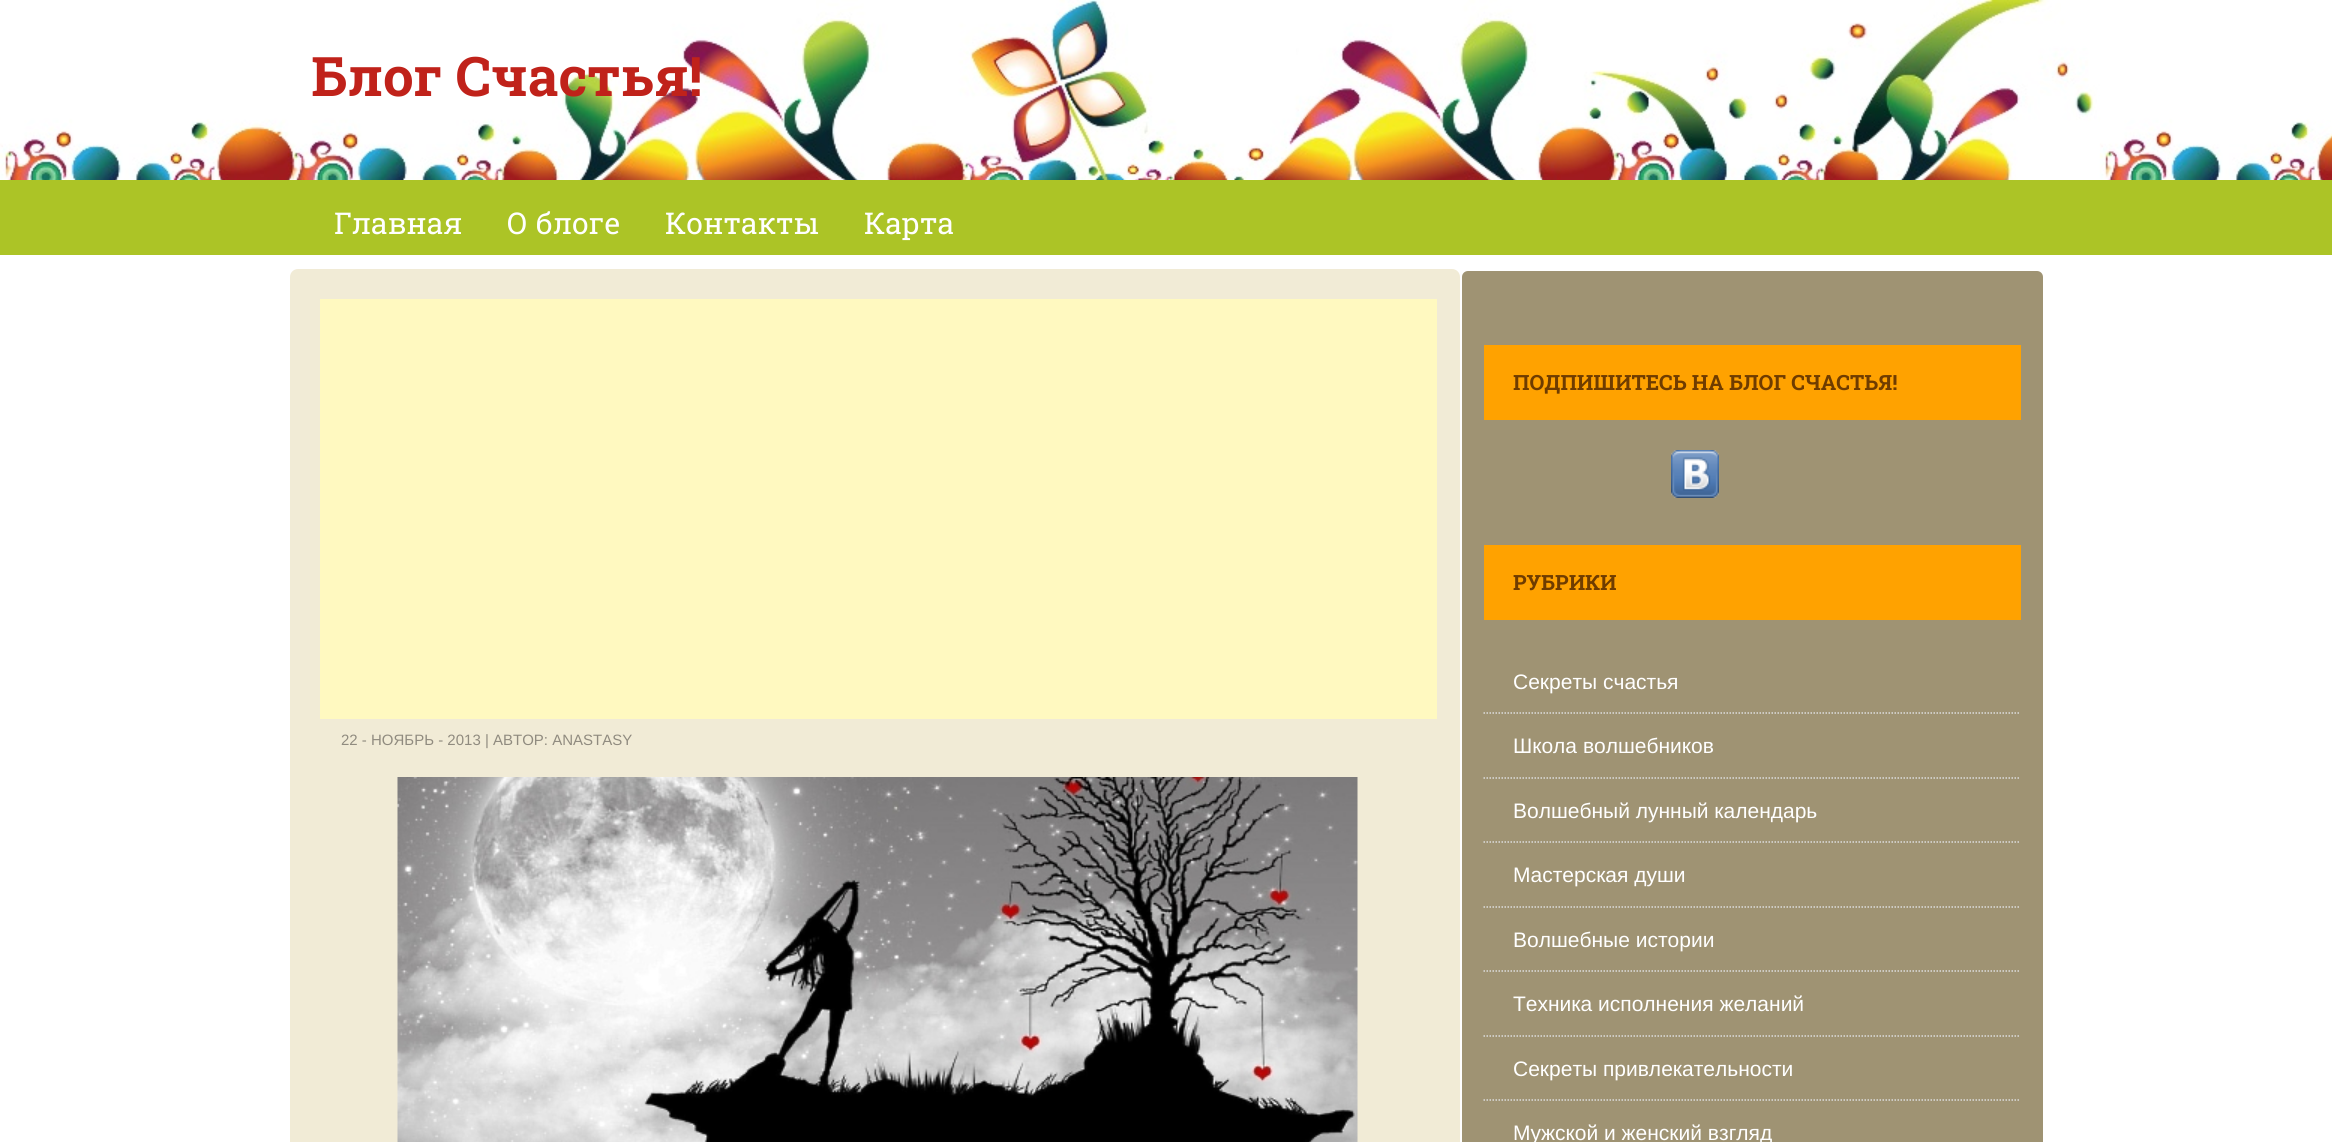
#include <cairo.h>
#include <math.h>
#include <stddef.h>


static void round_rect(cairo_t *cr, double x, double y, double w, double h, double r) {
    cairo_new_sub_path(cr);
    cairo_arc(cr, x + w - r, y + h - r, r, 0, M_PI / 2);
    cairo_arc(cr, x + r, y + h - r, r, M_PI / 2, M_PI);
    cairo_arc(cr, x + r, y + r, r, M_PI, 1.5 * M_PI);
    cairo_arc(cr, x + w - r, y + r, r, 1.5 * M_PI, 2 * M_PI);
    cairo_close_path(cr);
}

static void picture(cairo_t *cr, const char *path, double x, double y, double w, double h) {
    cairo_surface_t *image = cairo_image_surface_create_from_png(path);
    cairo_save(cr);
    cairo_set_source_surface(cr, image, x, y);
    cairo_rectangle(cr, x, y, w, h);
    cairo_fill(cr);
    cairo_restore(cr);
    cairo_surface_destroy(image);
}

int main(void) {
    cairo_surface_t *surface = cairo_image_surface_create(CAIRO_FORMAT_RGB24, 2332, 1142);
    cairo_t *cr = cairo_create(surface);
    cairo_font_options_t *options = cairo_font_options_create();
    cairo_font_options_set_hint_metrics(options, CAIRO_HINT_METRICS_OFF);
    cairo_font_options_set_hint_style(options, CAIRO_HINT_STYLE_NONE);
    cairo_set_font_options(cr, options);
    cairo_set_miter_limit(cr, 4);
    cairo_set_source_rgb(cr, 1, 1, 1);
    cairo_paint(cr);
    picture(cr, "img1.png", 0, 0, 2332, 180);
    cairo_select_font_face(cr, "Roboto Slab", CAIRO_FONT_SLANT_NORMAL, CAIRO_FONT_WEIGHT_BOLD);
    cairo_set_font_size(cr, 54.5);
    cairo_set_source_rgb(cr, 0.753, 0.133, 0.102);
    cairo_move_to(cr, 311, 96);
    cairo_show_text(cr, "Блог Счастья!");
    cairo_set_source_rgb(cr, 0.675, 0.769, 0.149);
    cairo_rectangle(cr, 0, 180, 2332, 75);
    cairo_fill(cr);
    cairo_select_font_face(cr, "Roboto Slab", CAIRO_FONT_SLANT_NORMAL, CAIRO_FONT_WEIGHT_NORMAL);
    cairo_set_font_size(cr, 30);
    cairo_set_source_rgb(cr, 1, 1, 1);
    cairo_move_to(cr, 334, 234);
    cairo_show_text(cr, "Главная");
    cairo_move_to(cr, 507, 234);
    cairo_show_text(cr, "О блоге");
    cairo_move_to(cr, 665, 234);
    cairo_show_text(cr, "Контакты");
    cairo_move_to(cr, 864, 234);
    cairo_show_text(cr, "Карта");
    cairo_set_source_rgb(cr, 0.945, 0.918, 0.839);
    round_rect(cr, 290, 269, 1170, 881, 8);
    cairo_fill(cr);
    cairo_set_source_rgb(cr, 1, 0.976, 0.753);
    cairo_rectangle(cr, 320, 299, 1117, 420);
    cairo_fill(cr);
    cairo_select_font_face(cr, "Liberation Sans", CAIRO_FONT_SLANT_NORMAL, CAIRO_FONT_WEIGHT_NORMAL);
    cairo_set_font_size(cr, 15);
    cairo_set_source_rgb(cr, 0.565, 0.545, 0.498);
    cairo_move_to(cr, 341, 745);
    cairo_show_text(cr, "22 - НОЯБРЬ - 2013 | АВТОР: ANASTASY");
    picture(cr, "img2.png", 397, 777, 961, 365);
    cairo_set_source_rgb(cr, 0.624, 0.576, 0.451);
    round_rect(cr, 1461, 270, 583, 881, 7);
    cairo_fill_preserve(cr);
    cairo_set_source_rgb(cr, 1, 1, 1);
    cairo_stroke(cr);
    cairo_set_source_rgb(cr, 1, 0.635, 0);
    cairo_rectangle(cr, 1484, 345, 537, 75);
    cairo_fill(cr);
    cairo_select_font_face(cr, "Roboto Slab", CAIRO_FONT_SLANT_NORMAL, CAIRO_FONT_WEIGHT_BOLD);
    cairo_set_font_size(cr, 21);
    cairo_set_source_rgb(cr, 0.435, 0.235, 0);
    cairo_move_to(cr, 1513, 390);
    cairo_show_text(cr, "ПОДПИШИТЕСЬ НА БЛОГ СЧАСТЬЯ!");
    picture(cr, "img3.png", 1671, 450, 48, 48);
    cairo_set_source_rgb(cr, 1, 0.635, 0);
    cairo_rectangle(cr, 1484, 545, 537, 75);
    cairo_fill(cr);
    cairo_set_source_rgb(cr, 0.435, 0.235, 0);
    cairo_move_to(cr, 1513, 590);
    cairo_show_text(cr, "РУБРИКИ");
    cairo_new_path(cr);
    cairo_move_to(cr, 1483.5, 713);
    cairo_line_to(cr, 2020.5, 713);
    cairo_set_source_rgb(cr, 0.867, 0.867, 0.867);
    cairo_set_line_width(cr, 1.5);
    cairo_set_dash(cr, (double[]){1.5, 1.5}, 2, 0);
    cairo_stroke(cr);
    cairo_select_font_face(cr, "Liberation Sans", CAIRO_FONT_SLANT_NORMAL, CAIRO_FONT_WEIGHT_NORMAL);
    cairo_set_source_rgb(cr, 1, 1, 1);
    cairo_move_to(cr, 1513, 689);
    cairo_show_text(cr, "Секреты счастья");
    cairo_new_path(cr);
    cairo_move_to(cr, 1483.5, 778);
    cairo_line_to(cr, 2020.5, 778);
    cairo_set_source_rgb(cr, 0.867, 0.867, 0.867);
    cairo_stroke(cr);
    cairo_set_source_rgb(cr, 1, 1, 1);
    cairo_move_to(cr, 1513, 753);
    cairo_show_text(cr, "Школа волшебников");
    cairo_new_path(cr);
    cairo_move_to(cr, 1483.5, 842);
    cairo_line_to(cr, 2020.5, 842);
    cairo_set_source_rgb(cr, 0.867, 0.867, 0.867);
    cairo_stroke(cr);
    cairo_set_source_rgb(cr, 1, 1, 1);
    cairo_move_to(cr, 1513, 818);
    cairo_show_text(cr, "Волшебный лунный календарь");
    cairo_new_path(cr);
    cairo_move_to(cr, 1483.5, 907);
    cairo_line_to(cr, 2020.5, 907);
    cairo_set_source_rgb(cr, 0.867, 0.867, 0.867);
    cairo_stroke(cr);
    cairo_set_source_rgb(cr, 1, 1, 1);
    cairo_move_to(cr, 1513, 882);
    cairo_show_text(cr, "Мастерская души");
    cairo_new_path(cr);
    cairo_move_to(cr, 1483.5, 971);
    cairo_line_to(cr, 2020.5, 971);
    cairo_set_source_rgb(cr, 0.867, 0.867, 0.867);
    cairo_stroke(cr);
    cairo_set_source_rgb(cr, 1, 1, 1);
    cairo_move_to(cr, 1513, 947);
    cairo_show_text(cr, "Волшебные истории");
    cairo_new_path(cr);
    cairo_move_to(cr, 1483.5, 1036);
    cairo_line_to(cr, 2020.5, 1036);
    cairo_set_source_rgb(cr, 0.867, 0.867, 0.867);
    cairo_stroke(cr);
    cairo_set_source_rgb(cr, 1, 1, 1);
    cairo_move_to(cr, 1513, 1011);
    cairo_show_text(cr, "Техника исполнения желаний");
    cairo_new_path(cr);
    cairo_move_to(cr, 1483.5, 1100);
    cairo_line_to(cr, 2020.5, 1100);
    cairo_set_source_rgb(cr, 0.867, 0.867, 0.867);
    cairo_stroke(cr);
    cairo_set_source_rgb(cr, 1, 1, 1);
    cairo_move_to(cr, 1513, 1076);
    cairo_show_text(cr, "Секреты привлекательности");
    cairo_move_to(cr, 1513, 1140);
    cairo_show_text(cr, "Мужской и женский взгляд");
    cairo_surface_write_to_png(surface, "page.png");
    cairo_font_options_destroy(options);
    cairo_destroy(cr);
    cairo_surface_destroy(surface);
    return 0;
}
